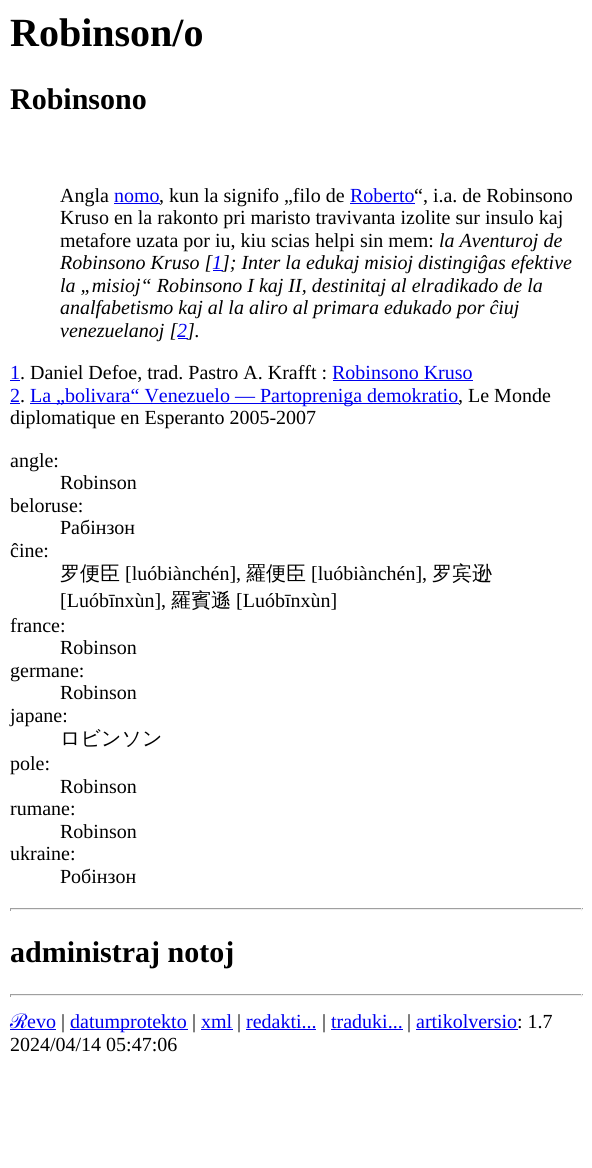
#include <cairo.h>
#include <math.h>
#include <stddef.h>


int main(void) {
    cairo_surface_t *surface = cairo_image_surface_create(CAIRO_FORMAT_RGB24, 592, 1168);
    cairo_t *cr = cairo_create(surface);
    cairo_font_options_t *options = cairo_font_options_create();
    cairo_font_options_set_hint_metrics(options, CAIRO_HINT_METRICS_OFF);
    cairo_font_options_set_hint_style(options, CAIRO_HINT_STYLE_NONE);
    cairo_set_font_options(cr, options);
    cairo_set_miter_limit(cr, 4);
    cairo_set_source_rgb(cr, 1, 1, 1);
    cairo_paint(cr);
    cairo_select_font_face(cr, "Liberation Serif", CAIRO_FONT_SLANT_NORMAL, CAIRO_FONT_WEIGHT_BOLD);
    cairo_set_font_size(cr, 40);
    cairo_set_source_rgb(cr, 0, 0, 0);
    cairo_move_to(cr, 10, 46);
    cairo_show_text(cr, "Robinson/o");
    cairo_set_font_size(cr, 30);
    cairo_move_to(cr, 10, 109);
    cairo_show_text(cr, "Robinsono");
    cairo_select_font_face(cr, "Liberation Serif", CAIRO_FONT_SLANT_NORMAL, CAIRO_FONT_WEIGHT_NORMAL);
    cairo_set_font_size(cr, 20);
    cairo_move_to(cr, 60, 202);
    cairo_show_text(cr, "Angla");
    cairo_set_source_rgb(cr, 0, 0, 0.933);
    cairo_move_to(cr, 114, 202);
    cairo_show_text(cr, "nomo");
    cairo_rectangle(cr, 114, 203, 46, 1);
    cairo_fill(cr);
    cairo_set_source_rgb(cr, 0, 0, 0);
    cairo_move_to(cr, 159, 202);
    cairo_show_text(cr, ", kun la signifo „filo de");
    cairo_set_source_rgb(cr, 0, 0, 0.933);
    cairo_move_to(cr, 350, 202);
    cairo_show_text(cr, "Roberto");
    cairo_set_source_rgb(cr, 0, 0, 0);
    cairo_move_to(cr, 414, 202);
    cairo_show_text(cr, "“, i.a. de Robinsono");
    cairo_set_source_rgb(cr, 0, 0, 0.933);
    cairo_rectangle(cr, 350, 203, 65, 1);
    cairo_fill(cr);
    cairo_set_source_rgb(cr, 0, 0, 0);
    cairo_move_to(cr, 60, 224);
    cairo_show_text(cr, "Kruso en la rakonto pri maristo travivanta izolite sur insulo kaj");
    cairo_move_to(cr, 60, 247);
    cairo_show_text(cr, "metafore uzata por iu, kiu scias helpi sin mem:");
    cairo_select_font_face(cr, "Liberation Serif", CAIRO_FONT_SLANT_ITALIC, CAIRO_FONT_WEIGHT_NORMAL);
    cairo_move_to(cr, 439, 247);
    cairo_show_text(cr, "la Aventuroj de");
    cairo_move_to(cr, 60, 269);
    cairo_show_text(cr, "Robinsono Kruso [");
    cairo_set_source_rgb(cr, 0, 0, 0.933);
    cairo_move_to(cr, 212, 269);
    cairo_show_text(cr, "1");
    cairo_rectangle(cr, 213, 270, 10, 1);
    cairo_fill(cr);
    cairo_set_source_rgb(cr, 0, 0, 0);
    cairo_move_to(cr, 222, 269);
    cairo_show_text(cr, "]; Inter la edukaj misioj distingiĝas efektive");
    cairo_move_to(cr, 60, 292);
    cairo_show_text(cr, "la „misioj“ Robinsono I kaj II, destinitaj al elradikado de la");
    cairo_move_to(cr, 60, 314);
    cairo_show_text(cr, "analfabetismo kaj al la aliro al primara edukado por ĉiuj");
    cairo_move_to(cr, 60, 337);
    cairo_show_text(cr, "venezuelanoj [");
    cairo_set_source_rgb(cr, 0, 0, 0.933);
    cairo_rectangle(cr, 178, 338, 10, 1);
    cairo_fill(cr);
    cairo_move_to(cr, 177, 337);
    cairo_show_text(cr, "2");
    cairo_set_source_rgb(cr, 0, 0, 0);
    cairo_move_to(cr, 187, 337);
    cairo_show_text(cr, "].");
    cairo_select_font_face(cr, "Liberation Serif", CAIRO_FONT_SLANT_NORMAL, CAIRO_FONT_WEIGHT_NORMAL);
    cairo_set_source_rgb(cr, 0, 0, 0.933);
    cairo_move_to(cr, 10, 379);
    cairo_show_text(cr, "1");
    cairo_set_source_rgb(cr, 0, 0, 0);
    cairo_move_to(cr, 20, 379);
    cairo_show_text(cr, ". Daniel Defoe, trad. Pastro A. Krafft :");
    cairo_set_source_rgb(cr, 0, 0, 0.933);
    cairo_rectangle(cr, 10, 380, 10, 1);
    cairo_fill(cr);
    cairo_move_to(cr, 332, 379);
    cairo_show_text(cr, "Robinsono Kruso");
    cairo_rectangle(cr, 333, 380, 140, 1);
    cairo_fill(cr);
    cairo_move_to(cr, 10, 402);
    cairo_show_text(cr, "2");
    cairo_set_source_rgb(cr, 0, 0, 0);
    cairo_move_to(cr, 20, 402);
    cairo_show_text(cr, ".");
    cairo_set_source_rgb(cr, 0, 0, 0.933);
    cairo_rectangle(cr, 10, 403, 10, 1);
    cairo_fill(cr);
    cairo_rectangle(cr, 30, 403, 429, 1);
    cairo_fill(cr);
    cairo_move_to(cr, 30, 402);
    cairo_show_text(cr, "La „bolivara“ Venezuelo ― Partopreniga demokratio");
    cairo_set_source_rgb(cr, 0, 0, 0);
    cairo_move_to(cr, 458, 402);
    cairo_show_text(cr, ", Le Monde");
    cairo_move_to(cr, 10, 424);
    cairo_show_text(cr, "diplomatique en Esperanto 2005-2007");
    cairo_move_to(cr, 10, 467);
    cairo_show_text(cr, "angle:");
    cairo_move_to(cr, 60, 489);
    cairo_show_text(cr, "Robinson");
    cairo_move_to(cr, 10, 512);
    cairo_show_text(cr, "beloruse:");
    cairo_move_to(cr, 60, 534);
    cairo_show_text(cr, "Рабінзон");
    cairo_move_to(cr, 10, 557);
    cairo_show_text(cr, "ĉine:");
    cairo_select_font_face(cr, "WenQuanYi Zen Hei Medium", CAIRO_FONT_SLANT_NORMAL, CAIRO_FONT_WEIGHT_NORMAL);
    cairo_move_to(cr, 60, 580);
    cairo_show_text(cr, "罗便臣");
    cairo_select_font_face(cr, "Liberation Serif", CAIRO_FONT_SLANT_NORMAL, CAIRO_FONT_WEIGHT_NORMAL);
    cairo_move_to(cr, 125, 580);
    cairo_show_text(cr, "[luóbiànchén],");
    cairo_select_font_face(cr, "WenQuanYi Zen Hei Medium", CAIRO_FONT_SLANT_NORMAL, CAIRO_FONT_WEIGHT_NORMAL);
    cairo_move_to(cr, 246, 580);
    cairo_show_text(cr, "羅便臣");
    cairo_select_font_face(cr, "Liberation Serif", CAIRO_FONT_SLANT_NORMAL, CAIRO_FONT_WEIGHT_NORMAL);
    cairo_move_to(cr, 311, 580);
    cairo_show_text(cr, "[luóbiànchén],");
    cairo_select_font_face(cr, "WenQuanYi Zen Hei Medium", CAIRO_FONT_SLANT_NORMAL, CAIRO_FONT_WEIGHT_NORMAL);
    cairo_move_to(cr, 432, 580);
    cairo_show_text(cr, "罗宾逊");
    cairo_select_font_face(cr, "Liberation Serif", CAIRO_FONT_SLANT_NORMAL, CAIRO_FONT_WEIGHT_NORMAL);
    cairo_move_to(cr, 60, 607);
    cairo_show_text(cr, "[Luóbīnxùn],");
    cairo_select_font_face(cr, "WenQuanYi Zen Hei Medium", CAIRO_FONT_SLANT_NORMAL, CAIRO_FONT_WEIGHT_NORMAL);
    cairo_move_to(cr, 171, 607);
    cairo_show_text(cr, "羅賓遜");
    cairo_select_font_face(cr, "Liberation Serif", CAIRO_FONT_SLANT_NORMAL, CAIRO_FONT_WEIGHT_NORMAL);
    cairo_move_to(cr, 236, 607);
    cairo_show_text(cr, "[Luóbīnxùn]");
    cairo_move_to(cr, 10, 632);
    cairo_show_text(cr, "france:");
    cairo_move_to(cr, 60, 654);
    cairo_show_text(cr, "Robinson");
    cairo_move_to(cr, 10, 677);
    cairo_show_text(cr, "germane:");
    cairo_move_to(cr, 60, 699);
    cairo_show_text(cr, "Robinson");
    cairo_move_to(cr, 10, 722);
    cairo_show_text(cr, "japane:");
    cairo_select_font_face(cr, "WenQuanYi Zen Hei Medium", CAIRO_FONT_SLANT_NORMAL, CAIRO_FONT_WEIGHT_NORMAL);
    cairo_move_to(cr, 60, 745);
    cairo_show_text(cr, "ロビンソン");
    cairo_select_font_face(cr, "Liberation Serif", CAIRO_FONT_SLANT_NORMAL, CAIRO_FONT_WEIGHT_NORMAL);
    cairo_move_to(cr, 10, 770);
    cairo_show_text(cr, "pole:");
    cairo_move_to(cr, 60, 793);
    cairo_show_text(cr, "Robinson");
    cairo_move_to(cr, 10, 815);
    cairo_show_text(cr, "rumane:");
    cairo_move_to(cr, 60, 838);
    cairo_show_text(cr, "Robinson");
    cairo_move_to(cr, 10, 860);
    cairo_show_text(cr, "ukraine:");
    cairo_move_to(cr, 60, 883);
    cairo_show_text(cr, "Робінзон");
    cairo_set_source_rgb(cr, 0.624, 0.624, 0.624);
    cairo_rectangle(cr, 10, 908, 573, 1);
    cairo_fill(cr);
    cairo_set_source_rgb(cr, 0.933, 0.933, 0.933);
    cairo_rectangle(cr, 581, 908, 1, 3);
    cairo_fill(cr);
    cairo_rectangle(cr, 10, 909, 573, 1);
    cairo_fill(cr);
    cairo_set_source_rgb(cr, 0.624, 0.624, 0.624);
    cairo_rectangle(cr, 10, 908, 1, 3);
    cairo_fill(cr);
    cairo_select_font_face(cr, "Liberation Serif", CAIRO_FONT_SLANT_NORMAL, CAIRO_FONT_WEIGHT_BOLD);
    cairo_set_font_size(cr, 30);
    cairo_set_source_rgb(cr, 0, 0, 0);
    cairo_move_to(cr, 10, 962);
    cairo_show_text(cr, "administraj notoj");
    cairo_set_source_rgb(cr, 0.624, 0.624, 0.624);
    cairo_rectangle(cr, 10, 994, 573, 1);
    cairo_fill(cr);
    cairo_set_source_rgb(cr, 0.933, 0.933, 0.933);
    cairo_rectangle(cr, 581, 994, 1, 3);
    cairo_fill(cr);
    cairo_rectangle(cr, 10, 995, 573, 1);
    cairo_fill(cr);
    cairo_set_source_rgb(cr, 0.624, 0.624, 0.624);
    cairo_rectangle(cr, 10, 994, 1, 3);
    cairo_fill(cr);
    cairo_select_font_face(cr, "Noto Sans", CAIRO_FONT_SLANT_NORMAL, CAIRO_FONT_WEIGHT_NORMAL);
    cairo_set_font_size(cr, 20);
    cairo_set_source_rgb(cr, 0, 0, 0.933);
    cairo_move_to(cr, 10, 1028);
    cairo_show_text(cr, "ℛ");
    cairo_select_font_face(cr, "Liberation Serif", CAIRO_FONT_SLANT_NORMAL, CAIRO_FONT_WEIGHT_NORMAL);
    cairo_move_to(cr, 27, 1028);
    cairo_show_text(cr, "evo");
    cairo_rectangle(cr, 10, 1029, 46, 1);
    cairo_fill(cr);
    cairo_set_source_rgb(cr, 0, 0, 0);
    cairo_move_to(cr, 61, 1028);
    cairo_show_text(cr, "|");
    cairo_set_source_rgb(cr, 0, 0, 0.933);
    cairo_rectangle(cr, 70, 1029, 118, 1);
    cairo_fill(cr);
    cairo_move_to(cr, 70, 1028);
    cairo_show_text(cr, "datumprotekto");
    cairo_set_source_rgb(cr, 0, 0, 0);
    cairo_move_to(cr, 192, 1028);
    cairo_show_text(cr, "|");
    cairo_set_source_rgb(cr, 0, 0, 0.933);
    cairo_move_to(cr, 201, 1028);
    cairo_show_text(cr, "xml");
    cairo_rectangle(cr, 201, 1029, 32, 1);
    cairo_fill(cr);
    cairo_set_source_rgb(cr, 0, 0, 0);
    cairo_move_to(cr, 237, 1028);
    cairo_show_text(cr, "|");
    cairo_set_source_rgb(cr, 0, 0, 0.933);
    cairo_move_to(cr, 246, 1028);
    cairo_show_text(cr, "redakti...");
    cairo_rectangle(cr, 246, 1029, 70, 1);
    cairo_fill(cr);
    cairo_set_source_rgb(cr, 0, 0, 0);
    cairo_move_to(cr, 322, 1028);
    cairo_show_text(cr, "|");
    cairo_set_source_rgb(cr, 0, 0, 0.933);
    cairo_move_to(cr, 331, 1028);
    cairo_show_text(cr, "traduki...");
    cairo_rectangle(cr, 331, 1029, 72, 1);
    cairo_fill(cr);
    cairo_set_source_rgb(cr, 0, 0, 0);
    cairo_move_to(cr, 407, 1028);
    cairo_show_text(cr, "|");
    cairo_set_source_rgb(cr, 0, 0, 0.933);
    cairo_move_to(cr, 416, 1028);
    cairo_show_text(cr, "artikolversio");
    cairo_rectangle(cr, 416, 1029, 102, 1);
    cairo_fill(cr);
    cairo_set_source_rgb(cr, 0, 0, 0);
    cairo_move_to(cr, 517, 1028);
    cairo_show_text(cr, ": 1.7");
    cairo_move_to(cr, 10, 1051);
    cairo_show_text(cr, "2024/04/14 05:47:06");
    cairo_surface_write_to_png(surface, "page.png");
    cairo_font_options_destroy(options);
    cairo_destroy(cr);
    cairo_surface_destroy(surface);
    return 0;
}
